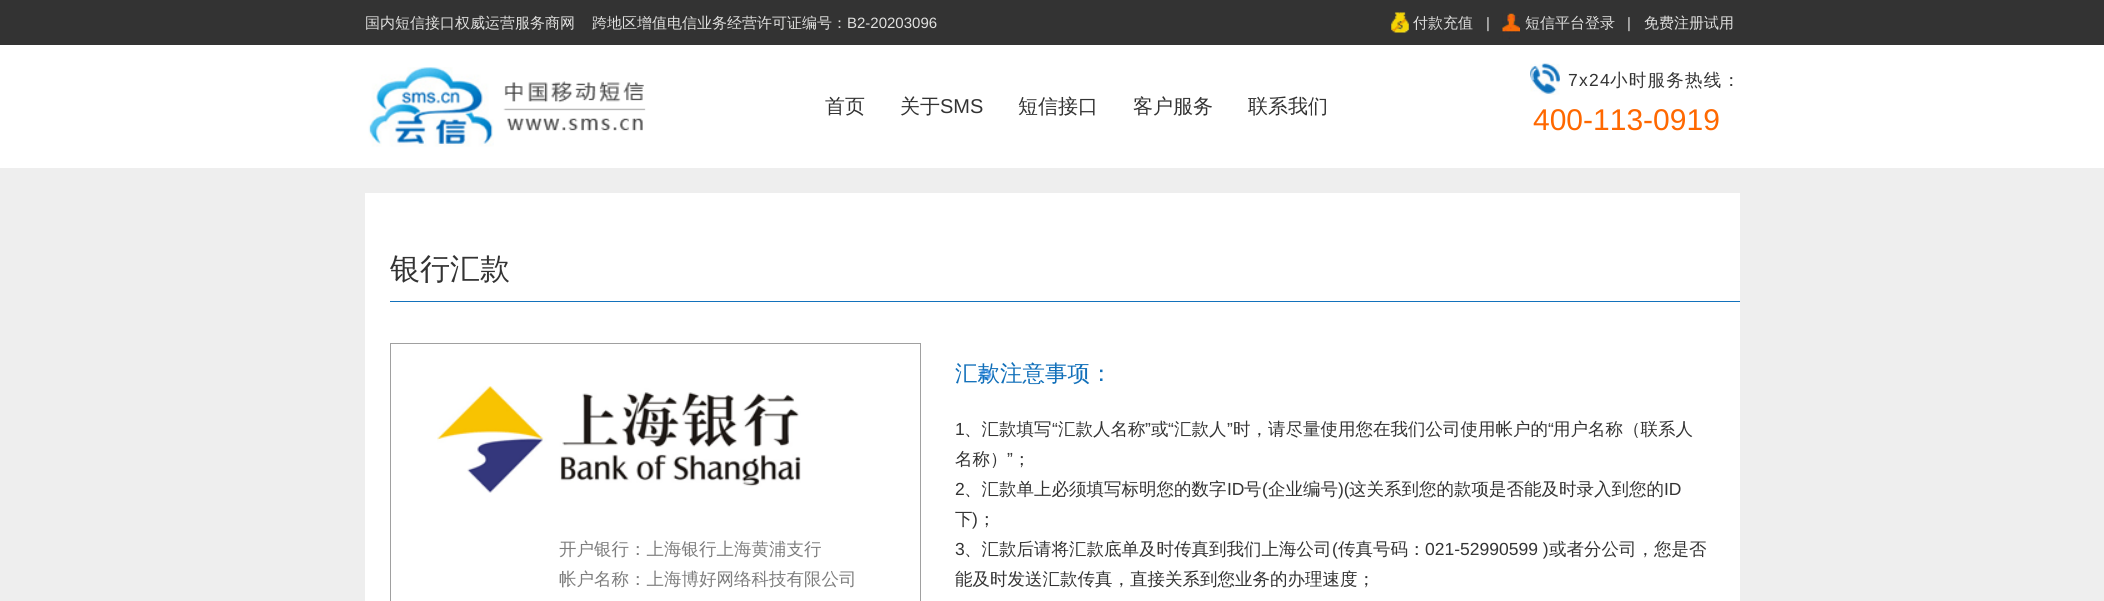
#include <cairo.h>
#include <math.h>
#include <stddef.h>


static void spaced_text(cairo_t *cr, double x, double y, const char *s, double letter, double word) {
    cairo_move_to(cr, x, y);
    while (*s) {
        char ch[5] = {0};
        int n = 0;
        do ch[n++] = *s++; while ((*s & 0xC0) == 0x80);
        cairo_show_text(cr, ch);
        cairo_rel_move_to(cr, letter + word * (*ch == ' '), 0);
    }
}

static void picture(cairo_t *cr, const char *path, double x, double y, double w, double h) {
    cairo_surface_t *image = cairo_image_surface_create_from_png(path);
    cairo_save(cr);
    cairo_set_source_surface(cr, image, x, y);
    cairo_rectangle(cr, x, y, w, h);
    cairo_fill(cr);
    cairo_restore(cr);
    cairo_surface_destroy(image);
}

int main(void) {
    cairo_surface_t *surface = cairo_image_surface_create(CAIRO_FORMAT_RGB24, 2104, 601);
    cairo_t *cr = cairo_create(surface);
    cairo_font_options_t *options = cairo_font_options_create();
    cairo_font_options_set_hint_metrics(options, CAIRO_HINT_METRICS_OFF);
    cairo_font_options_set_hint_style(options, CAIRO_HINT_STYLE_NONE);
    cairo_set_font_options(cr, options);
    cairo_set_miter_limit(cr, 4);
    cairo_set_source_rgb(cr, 0.933, 0.933, 0.933);
    cairo_paint(cr);
    cairo_set_source_rgb(cr, 0.2, 0.2, 0.2);
    cairo_rectangle(cr, 0, 0, 2104, 45);
    cairo_fill(cr);
    cairo_select_font_face(cr, "WenQuanYi Zen Hei Medium", CAIRO_FONT_SLANT_NORMAL, CAIRO_FONT_WEIGHT_NORMAL);
    cairo_set_font_size(cr, 15);
    cairo_set_source_rgb(cr, 0.878, 0.878, 0.875);
    cairo_move_to(cr, 365, 28);
    cairo_show_text(cr, "国内短信接口权威运营服务商网");
    cairo_move_to(cr, 592, 28);
    cairo_show_text(cr, "跨地区增值电信业务经营许可证编号：");
    cairo_select_font_face(cr, "Liberation Sans", CAIRO_FONT_SLANT_NORMAL, CAIRO_FONT_WEIGHT_NORMAL);
    cairo_move_to(cr, 847, 28);
    cairo_show_text(cr, "B2-20203096");
    picture(cr, "img1.png", 1391, 12, 18, 21);
    cairo_select_font_face(cr, "WenQuanYi Zen Hei Medium", CAIRO_FONT_SLANT_NORMAL, CAIRO_FONT_WEIGHT_NORMAL);
    cairo_move_to(cr, 1413, 28);
    cairo_show_text(cr, "付款充值");
    cairo_select_font_face(cr, "Liberation Sans", CAIRO_FONT_SLANT_NORMAL, CAIRO_FONT_WEIGHT_NORMAL);
    cairo_move_to(cr, 1486, 28);
    cairo_show_text(cr, "|");
    picture(cr, "img2.png", 1502, 13, 18, 26);
    cairo_select_font_face(cr, "WenQuanYi Zen Hei Medium", CAIRO_FONT_SLANT_NORMAL, CAIRO_FONT_WEIGHT_NORMAL);
    cairo_move_to(cr, 1525, 28);
    cairo_show_text(cr, "短信平台登录");
    cairo_select_font_face(cr, "Liberation Sans", CAIRO_FONT_SLANT_NORMAL, CAIRO_FONT_WEIGHT_NORMAL);
    cairo_move_to(cr, 1627, 28);
    cairo_show_text(cr, "|");
    cairo_select_font_face(cr, "WenQuanYi Zen Hei Medium", CAIRO_FONT_SLANT_NORMAL, CAIRO_FONT_WEIGHT_NORMAL);
    cairo_move_to(cr, 1644, 28);
    cairo_show_text(cr, "免费注册试用");
    cairo_set_source_rgb(cr, 1, 1, 1);
    cairo_rectangle(cr, 0, 45, 2104, 123);
    cairo_fill(cr);
    picture(cr, "img3.png", 368, 67, 278, 80);
    cairo_set_font_size(cr, 20);
    cairo_set_source_rgb(cr, 0.2, 0.2, 0.2);
    cairo_move_to(cr, 825, 113);
    cairo_show_text(cr, "首页");
    cairo_move_to(cr, 900, 113);
    cairo_show_text(cr, "关于");
    cairo_select_font_face(cr, "Liberation Sans", CAIRO_FONT_SLANT_NORMAL, CAIRO_FONT_WEIGHT_NORMAL);
    cairo_move_to(cr, 940, 113);
    cairo_show_text(cr, "SMS");
    cairo_select_font_face(cr, "WenQuanYi Zen Hei Medium", CAIRO_FONT_SLANT_NORMAL, CAIRO_FONT_WEIGHT_NORMAL);
    cairo_move_to(cr, 1018, 113);
    cairo_show_text(cr, "短信接口");
    cairo_move_to(cr, 1133, 113);
    cairo_show_text(cr, "客户服务");
    cairo_move_to(cr, 1248, 113);
    cairo_show_text(cr, "联系我们");
    picture(cr, "img4.png", 1530, 63, 30, 32);
    cairo_select_font_face(cr, "Liberation Sans", CAIRO_FONT_SLANT_NORMAL, CAIRO_FONT_WEIGHT_NORMAL);
    cairo_set_font_size(cr, 17.5);
    spaced_text(cr, 1568, 86, "7x24", 1.25, 0);
    cairo_select_font_face(cr, "WenQuanYi Zen Hei Medium", CAIRO_FONT_SLANT_NORMAL, CAIRO_FONT_WEIGHT_NORMAL);
    spaced_text(cr, 1610, 86, "小时服务热线：", 1.25, 0);
    cairo_select_font_face(cr, "Liberation Sans", CAIRO_FONT_SLANT_NORMAL, CAIRO_FONT_WEIGHT_NORMAL);
    cairo_set_font_size(cr, 30);
    cairo_set_source_rgb(cr, 1, 0.408, 0);
    cairo_move_to(cr, 1533, 130);
    cairo_show_text(cr, "400-113-0919");
    cairo_set_source_rgb(cr, 1, 1, 1);
    cairo_rectangle(cr, 365, 193, 1375, 408);
    cairo_fill(cr);
    cairo_set_source_rgb(cr, 0.078, 0.447, 0.737);
    cairo_rectangle(cr, 390, 301, 1350, 1);
    cairo_fill(cr);
    cairo_select_font_face(cr, "WenQuanYi Zen Hei Medium", CAIRO_FONT_SLANT_NORMAL, CAIRO_FONT_WEIGHT_NORMAL);
    cairo_set_source_rgb(cr, 0.2, 0.2, 0.2);
    cairo_move_to(cr, 390, 279);
    cairo_show_text(cr, "银行汇款");
    cairo_rectangle(cr, 390.5, 343.5, 530, 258);
    cairo_set_source_rgb(cr, 0.627, 0.627, 0.627);
    cairo_set_line_width(cr, 1);
    cairo_stroke(cr);
    picture(cr, "img5.png", 437, 386, 364, 107);
    cairo_set_font_size(cr, 17.5);
    cairo_set_source_rgb(cr, 0.49, 0.49, 0.49);
    cairo_move_to(cr, 559, 555);
    cairo_show_text(cr, "开户银行：上海银行上海黄浦支行");
    cairo_move_to(cr, 559, 585);
    cairo_show_text(cr, "帐户名称：上海博好网络科技有限公司");
    picture(cr, "img6.png", 980, 368, 12, 12);
    cairo_set_font_size(cr, 22.5);
    cairo_set_source_rgb(cr, 0.071, 0.439, 0.729);
    cairo_move_to(cr, 955, 381);
    cairo_show_text(cr, "汇款注意事项：");
    cairo_select_font_face(cr, "Liberation Sans", CAIRO_FONT_SLANT_NORMAL, CAIRO_FONT_WEIGHT_NORMAL);
    cairo_set_font_size(cr, 17.5);
    cairo_set_source_rgb(cr, 0.2, 0.2, 0.2);
    cairo_move_to(cr, 955, 435);
    cairo_show_text(cr, "1");
    cairo_select_font_face(cr, "WenQuanYi Zen Hei Medium", CAIRO_FONT_SLANT_NORMAL, CAIRO_FONT_WEIGHT_NORMAL);
    cairo_move_to(cr, 964, 435);
    cairo_show_text(cr, "、汇款填写");
    cairo_select_font_face(cr, "Liberation Sans", CAIRO_FONT_SLANT_NORMAL, CAIRO_FONT_WEIGHT_NORMAL);
    cairo_move_to(cr, 1052, 435);
    cairo_show_text(cr, "“");
    cairo_select_font_face(cr, "WenQuanYi Zen Hei Medium", CAIRO_FONT_SLANT_NORMAL, CAIRO_FONT_WEIGHT_NORMAL);
    cairo_move_to(cr, 1058, 435);
    cairo_show_text(cr, "汇款人名称");
    cairo_select_font_face(cr, "Liberation Sans", CAIRO_FONT_SLANT_NORMAL, CAIRO_FONT_WEIGHT_NORMAL);
    cairo_move_to(cr, 1145, 435);
    cairo_show_text(cr, "”");
    cairo_select_font_face(cr, "WenQuanYi Zen Hei Medium", CAIRO_FONT_SLANT_NORMAL, CAIRO_FONT_WEIGHT_NORMAL);
    cairo_move_to(cr, 1151, 435);
    cairo_show_text(cr, "或");
    cairo_select_font_face(cr, "Liberation Sans", CAIRO_FONT_SLANT_NORMAL, CAIRO_FONT_WEIGHT_NORMAL);
    cairo_move_to(cr, 1168, 435);
    cairo_show_text(cr, "“");
    cairo_select_font_face(cr, "WenQuanYi Zen Hei Medium", CAIRO_FONT_SLANT_NORMAL, CAIRO_FONT_WEIGHT_NORMAL);
    cairo_move_to(cr, 1174, 435);
    cairo_show_text(cr, "汇款人");
    cairo_select_font_face(cr, "Liberation Sans", CAIRO_FONT_SLANT_NORMAL, CAIRO_FONT_WEIGHT_NORMAL);
    cairo_move_to(cr, 1227, 435);
    cairo_show_text(cr, "”");
    cairo_select_font_face(cr, "WenQuanYi Zen Hei Medium", CAIRO_FONT_SLANT_NORMAL, CAIRO_FONT_WEIGHT_NORMAL);
    cairo_move_to(cr, 1233, 435);
    cairo_show_text(cr, "时，请尽量使用您在我们公司使用帐户的");
    cairo_select_font_face(cr, "Liberation Sans", CAIRO_FONT_SLANT_NORMAL, CAIRO_FONT_WEIGHT_NORMAL);
    cairo_move_to(cr, 1548, 435);
    cairo_show_text(cr, "“");
    cairo_select_font_face(cr, "WenQuanYi Zen Hei Medium", CAIRO_FONT_SLANT_NORMAL, CAIRO_FONT_WEIGHT_NORMAL);
    cairo_move_to(cr, 1553, 435);
    cairo_show_text(cr, "用户名称（联系人");
    cairo_move_to(cr, 955, 465);
    cairo_show_text(cr, "名称）");
    cairo_select_font_face(cr, "Liberation Sans", CAIRO_FONT_SLANT_NORMAL, CAIRO_FONT_WEIGHT_NORMAL);
    cairo_move_to(cr, 1007, 465);
    cairo_show_text(cr, "”");
    cairo_select_font_face(cr, "WenQuanYi Zen Hei Medium", CAIRO_FONT_SLANT_NORMAL, CAIRO_FONT_WEIGHT_NORMAL);
    cairo_move_to(cr, 1013, 465);
    cairo_show_text(cr, "；");
    cairo_select_font_face(cr, "Liberation Sans", CAIRO_FONT_SLANT_NORMAL, CAIRO_FONT_WEIGHT_NORMAL);
    cairo_move_to(cr, 955, 495);
    cairo_show_text(cr, "2");
    cairo_select_font_face(cr, "WenQuanYi Zen Hei Medium", CAIRO_FONT_SLANT_NORMAL, CAIRO_FONT_WEIGHT_NORMAL);
    cairo_move_to(cr, 964, 495);
    cairo_show_text(cr, "、汇款单上必须填写标明您的数字");
    cairo_select_font_face(cr, "Liberation Sans", CAIRO_FONT_SLANT_NORMAL, CAIRO_FONT_WEIGHT_NORMAL);
    cairo_move_to(cr, 1227, 495);
    cairo_show_text(cr, "ID");
    cairo_select_font_face(cr, "WenQuanYi Zen Hei Medium", CAIRO_FONT_SLANT_NORMAL, CAIRO_FONT_WEIGHT_NORMAL);
    cairo_move_to(cr, 1244, 495);
    cairo_show_text(cr, "号");
    cairo_select_font_face(cr, "Liberation Sans", CAIRO_FONT_SLANT_NORMAL, CAIRO_FONT_WEIGHT_NORMAL);
    cairo_move_to(cr, 1262, 495);
    cairo_show_text(cr, "(");
    cairo_select_font_face(cr, "WenQuanYi Zen Hei Medium", CAIRO_FONT_SLANT_NORMAL, CAIRO_FONT_WEIGHT_NORMAL);
    cairo_move_to(cr, 1268, 495);
    cairo_show_text(cr, "企业编号");
    cairo_select_font_face(cr, "Liberation Sans", CAIRO_FONT_SLANT_NORMAL, CAIRO_FONT_WEIGHT_NORMAL);
    cairo_move_to(cr, 1338, 495);
    cairo_show_text(cr, ")(");
    cairo_select_font_face(cr, "WenQuanYi Zen Hei Medium", CAIRO_FONT_SLANT_NORMAL, CAIRO_FONT_WEIGHT_NORMAL);
    cairo_move_to(cr, 1349, 495);
    cairo_show_text(cr, "这关系到您的款项是否能及时录入到您的");
    cairo_select_font_face(cr, "Liberation Sans", CAIRO_FONT_SLANT_NORMAL, CAIRO_FONT_WEIGHT_NORMAL);
    cairo_move_to(cr, 1664, 495);
    cairo_show_text(cr, "ID");
    cairo_select_font_face(cr, "WenQuanYi Zen Hei Medium", CAIRO_FONT_SLANT_NORMAL, CAIRO_FONT_WEIGHT_NORMAL);
    cairo_move_to(cr, 955, 525);
    cairo_show_text(cr, "下");
    cairo_select_font_face(cr, "Liberation Sans", CAIRO_FONT_SLANT_NORMAL, CAIRO_FONT_WEIGHT_NORMAL);
    cairo_move_to(cr, 972, 525);
    cairo_show_text(cr, ")");
    cairo_select_font_face(cr, "WenQuanYi Zen Hei Medium", CAIRO_FONT_SLANT_NORMAL, CAIRO_FONT_WEIGHT_NORMAL);
    cairo_move_to(cr, 978, 525);
    cairo_show_text(cr, "；");
    cairo_select_font_face(cr, "Liberation Sans", CAIRO_FONT_SLANT_NORMAL, CAIRO_FONT_WEIGHT_NORMAL);
    cairo_move_to(cr, 955, 555);
    cairo_show_text(cr, "3");
    cairo_select_font_face(cr, "WenQuanYi Zen Hei Medium", CAIRO_FONT_SLANT_NORMAL, CAIRO_FONT_WEIGHT_NORMAL);
    cairo_move_to(cr, 964, 555);
    cairo_show_text(cr, "、汇款后请将汇款底单及时传真到我们上海公司");
    cairo_select_font_face(cr, "Liberation Sans", CAIRO_FONT_SLANT_NORMAL, CAIRO_FONT_WEIGHT_NORMAL);
    cairo_move_to(cr, 1332, 555);
    cairo_show_text(cr, "(");
    cairo_select_font_face(cr, "WenQuanYi Zen Hei Medium", CAIRO_FONT_SLANT_NORMAL, CAIRO_FONT_WEIGHT_NORMAL);
    cairo_move_to(cr, 1338, 555);
    cairo_show_text(cr, "传真号码：");
    cairo_select_font_face(cr, "Liberation Sans", CAIRO_FONT_SLANT_NORMAL, CAIRO_FONT_WEIGHT_NORMAL);
    cairo_move_to(cr, 1425, 555);
    cairo_show_text(cr, "021-52990599 )");
    cairo_select_font_face(cr, "WenQuanYi Zen Hei Medium", CAIRO_FONT_SLANT_NORMAL, CAIRO_FONT_WEIGHT_NORMAL);
    cairo_move_to(cr, 1549, 555);
    cairo_show_text(cr, "或者分公司，您是否");
    cairo_move_to(cr, 955, 585);
    cairo_show_text(cr, "能及时发送汇款传真，直接关系到您业务的办理速度；");
    cairo_surface_write_to_png(surface, "page.png");
    cairo_font_options_destroy(options);
    cairo_destroy(cr);
    cairo_surface_destroy(surface);
    return 0;
}
